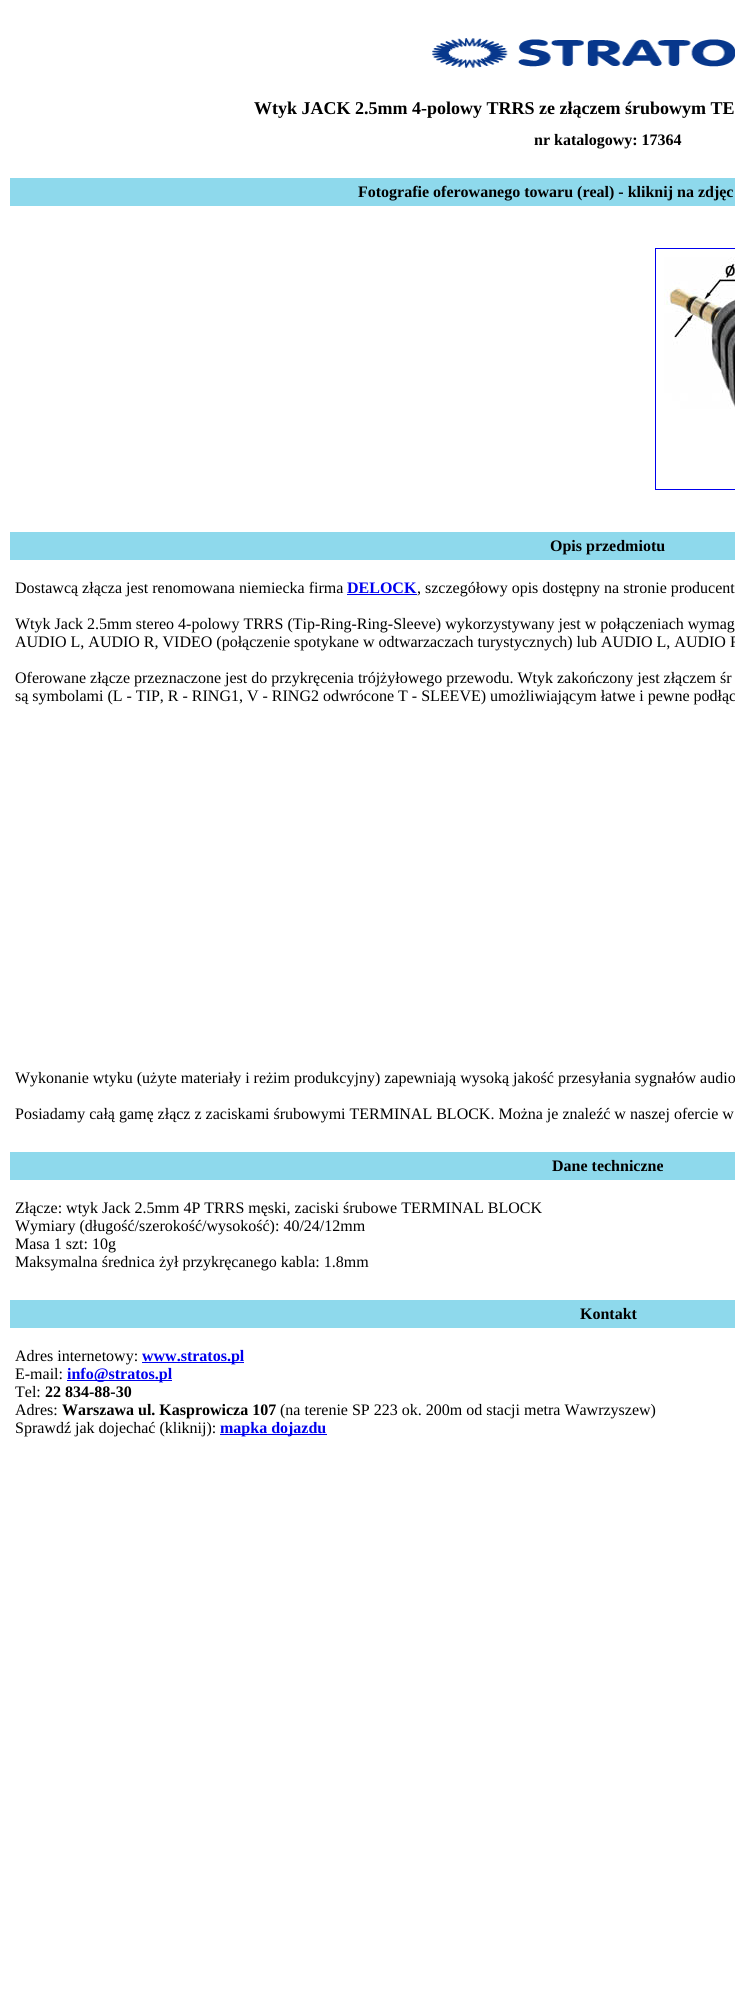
#include <cairo.h>
#include <math.h>
#include <stddef.h>


static void picture(cairo_t *cr, const char *path, double x, double y, double w, double h) {
    cairo_surface_t *image = cairo_image_surface_create_from_png(path);
    cairo_save(cr);
    cairo_set_source_surface(cr, image, x, y);
    cairo_rectangle(cr, x, y, w, h);
    cairo_fill(cr);
    cairo_restore(cr);
    cairo_surface_destroy(image);
}

int main(void) {
    cairo_surface_t *surface = cairo_image_surface_create(CAIRO_FORMAT_RGB24, 735, 2016);
    cairo_t *cr = cairo_create(surface);
    cairo_font_options_t *options = cairo_font_options_create();
    cairo_font_options_set_hint_metrics(options, CAIRO_HINT_METRICS_OFF);
    cairo_font_options_set_hint_style(options, CAIRO_HINT_STYLE_NONE);
    cairo_set_font_options(cr, options);
    cairo_set_miter_limit(cr, 4);
    cairo_set_source_rgb(cr, 1, 1, 1);
    cairo_paint(cr);
    picture(cr, "img1.png", 432, 38, 303, 30);
    cairo_select_font_face(cr, "Liberation Serif", CAIRO_FONT_SLANT_NORMAL, CAIRO_FONT_WEIGHT_BOLD);
    cairo_set_font_size(cr, 18);
    cairo_set_source_rgb(cr, 0, 0, 0);
    cairo_move_to(cr, 254, 114);
    cairo_show_text(cr, "Wtyk JACK 2.5mm 4-polowy TRRS ze złączem śrubowym TE");
    cairo_set_font_size(cr, 16);
    cairo_move_to(cr, 534, 145);
    cairo_show_text(cr, "nr katalogowy: 17364");
    cairo_set_source_rgb(cr, 0.557, 0.851, 0.925);
    cairo_rectangle(cr, 10, 178, 725, 28);
    cairo_fill(cr);
    cairo_set_source_rgb(cr, 0, 0, 0);
    cairo_move_to(cr, 358, 197);
    cairo_show_text(cr, "Fotografie oferowanego towaru (real) - kliknij na zdjęc");
    cairo_rectangle(cr, 655.5, 248.5, 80, 241);
    cairo_set_source_rgb(cr, 0, 0, 0.933);
    cairo_set_line_width(cr, 1);
    cairo_stroke(cr);
    picture(cr, "img2.png", 664, 257, 71, 152);
    cairo_set_source_rgb(cr, 0.557, 0.851, 0.925);
    cairo_rectangle(cr, 10, 532, 725, 28);
    cairo_fill(cr);
    cairo_set_source_rgb(cr, 0, 0, 0);
    cairo_move_to(cr, 550, 551);
    cairo_show_text(cr, "Opis przedmiotu");
    cairo_select_font_face(cr, "Liberation Serif", CAIRO_FONT_SLANT_NORMAL, CAIRO_FONT_WEIGHT_NORMAL);
    cairo_move_to(cr, 15, 593);
    cairo_show_text(cr, "Dostawcą złącza jest renomowana niemiecka firma");
    cairo_select_font_face(cr, "Liberation Serif", CAIRO_FONT_SLANT_NORMAL, CAIRO_FONT_WEIGHT_BOLD);
    cairo_set_source_rgb(cr, 0, 0, 0.933);
    cairo_move_to(cr, 347, 593);
    cairo_show_text(cr, "DELOCK");
    cairo_rectangle(cr, 347, 594, 70, 1);
    cairo_fill(cr);
    cairo_select_font_face(cr, "Liberation Serif", CAIRO_FONT_SLANT_NORMAL, CAIRO_FONT_WEIGHT_NORMAL);
    cairo_set_source_rgb(cr, 0, 0, 0);
    cairo_move_to(cr, 417, 593);
    cairo_show_text(cr, ", szczegółowy opis dostępny na stronie producent");
    cairo_move_to(cr, 15, 629);
    cairo_show_text(cr, "Wtyk Jack 2.5mm stereo 4-polowy TRRS (Tip-Ring-Ring-Sleeve) wykorzystywany jest w połączeniach wymag");
    cairo_move_to(cr, 15, 647);
    cairo_show_text(cr, "AUDIO L, AUDIO R, VIDEO (połączenie spotykane w odtwarzaczach turystycznych) lub AUDIO L, AUDIO R");
    cairo_move_to(cr, 15, 683);
    cairo_show_text(cr, "Oferowane złącze przeznaczone jest do przykręcenia trójżyłowego przewodu. Wtyk zakończony jest złączem śr");
    cairo_move_to(cr, 15, 701);
    cairo_show_text(cr, "są symbolami (L - TIP, R - RING1, V - RING2 odwrócone T - SLEEVE) umożliwiającym łatwe i pewne podłąc");
    cairo_move_to(cr, 15, 1083);
    cairo_show_text(cr, "Wykonanie wtyku (użyte materiały i reżim produkcyjny) zapewniają wysoką jakość przesyłania sygnałów audio");
    cairo_move_to(cr, 15, 1119);
    cairo_show_text(cr, "Posiadamy całą gamę złącz z zaciskami śrubowymi TERMINAL BLOCK. Można je znaleźć w naszej ofercie w");
    cairo_set_source_rgb(cr, 0.557, 0.851, 0.925);
    cairo_rectangle(cr, 10, 1152, 725, 28);
    cairo_fill(cr);
    cairo_select_font_face(cr, "Liberation Serif", CAIRO_FONT_SLANT_NORMAL, CAIRO_FONT_WEIGHT_BOLD);
    cairo_set_source_rgb(cr, 0, 0, 0);
    cairo_move_to(cr, 552, 1171);
    cairo_show_text(cr, "Dane techniczne");
    cairo_select_font_face(cr, "Liberation Serif", CAIRO_FONT_SLANT_NORMAL, CAIRO_FONT_WEIGHT_NORMAL);
    cairo_move_to(cr, 15, 1213);
    cairo_show_text(cr, "Złącze: wtyk Jack 2.5mm 4P TRRS męski, zaciski śrubowe TERMINAL BLOCK");
    cairo_move_to(cr, 15, 1231);
    cairo_show_text(cr, "Wymiary (długość/szerokość/wysokość): 40/24/12mm");
    cairo_move_to(cr, 15, 1249);
    cairo_show_text(cr, "Masa 1 szt: 10g");
    cairo_move_to(cr, 15, 1267);
    cairo_show_text(cr, "Maksymalna średnica żył przykręcanego kabla: 1.8mm");
    cairo_set_source_rgb(cr, 0.557, 0.851, 0.925);
    cairo_rectangle(cr, 10, 1300, 725, 28);
    cairo_fill(cr);
    cairo_select_font_face(cr, "Liberation Serif", CAIRO_FONT_SLANT_NORMAL, CAIRO_FONT_WEIGHT_BOLD);
    cairo_set_source_rgb(cr, 0, 0, 0);
    cairo_move_to(cr, 580, 1319);
    cairo_show_text(cr, "Kontakt");
    cairo_select_font_face(cr, "Liberation Serif", CAIRO_FONT_SLANT_NORMAL, CAIRO_FONT_WEIGHT_NORMAL);
    cairo_move_to(cr, 15, 1361);
    cairo_show_text(cr, "Adres internetowy:");
    cairo_set_source_rgb(cr, 0, 0, 0.933);
    cairo_rectangle(cr, 142, 1362, 102, 1);
    cairo_fill(cr);
    cairo_select_font_face(cr, "Liberation Serif", CAIRO_FONT_SLANT_NORMAL, CAIRO_FONT_WEIGHT_BOLD);
    cairo_move_to(cr, 142, 1361);
    cairo_show_text(cr, "www.stratos.pl");
    cairo_select_font_face(cr, "Liberation Serif", CAIRO_FONT_SLANT_NORMAL, CAIRO_FONT_WEIGHT_NORMAL);
    cairo_set_source_rgb(cr, 0, 0, 0);
    cairo_move_to(cr, 15, 1379);
    cairo_show_text(cr, "E-mail:");
    cairo_set_source_rgb(cr, 0, 0, 0.933);
    cairo_rectangle(cr, 67, 1380, 105, 1);
    cairo_fill(cr);
    cairo_select_font_face(cr, "Liberation Serif", CAIRO_FONT_SLANT_NORMAL, CAIRO_FONT_WEIGHT_BOLD);
    cairo_move_to(cr, 67, 1379);
    cairo_show_text(cr, "info@stratos.pl");
    cairo_select_font_face(cr, "Liberation Serif", CAIRO_FONT_SLANT_NORMAL, CAIRO_FONT_WEIGHT_NORMAL);
    cairo_set_source_rgb(cr, 0, 0, 0);
    cairo_move_to(cr, 15, 1397);
    cairo_show_text(cr, "Tel:");
    cairo_select_font_face(cr, "Liberation Serif", CAIRO_FONT_SLANT_NORMAL, CAIRO_FONT_WEIGHT_BOLD);
    cairo_move_to(cr, 45, 1397);
    cairo_show_text(cr, "22 834-88-30");
    cairo_select_font_face(cr, "Liberation Serif", CAIRO_FONT_SLANT_NORMAL, CAIRO_FONT_WEIGHT_NORMAL);
    cairo_move_to(cr, 15, 1415);
    cairo_show_text(cr, "Adres:");
    cairo_select_font_face(cr, "Liberation Serif", CAIRO_FONT_SLANT_NORMAL, CAIRO_FONT_WEIGHT_BOLD);
    cairo_move_to(cr, 62, 1415);
    cairo_show_text(cr, "Warszawa ul. Kasprowicza 107");
    cairo_select_font_face(cr, "Liberation Serif", CAIRO_FONT_SLANT_NORMAL, CAIRO_FONT_WEIGHT_NORMAL);
    cairo_move_to(cr, 280, 1415);
    cairo_show_text(cr, "(na terenie SP 223 ok. 200m od stacji metra Wawrzyszew)");
    cairo_move_to(cr, 15, 1433);
    cairo_show_text(cr, "Sprawdź jak dojechać (kliknij):");
    cairo_set_source_rgb(cr, 0, 0, 0.933);
    cairo_rectangle(cr, 220, 1434, 107, 1);
    cairo_fill(cr);
    cairo_select_font_face(cr, "Liberation Serif", CAIRO_FONT_SLANT_NORMAL, CAIRO_FONT_WEIGHT_BOLD);
    cairo_move_to(cr, 220, 1433);
    cairo_show_text(cr, "mapka dojazdu");
    cairo_surface_write_to_png(surface, "page.png");
    cairo_font_options_destroy(options);
    cairo_destroy(cr);
    cairo_surface_destroy(surface);
    return 0;
}
